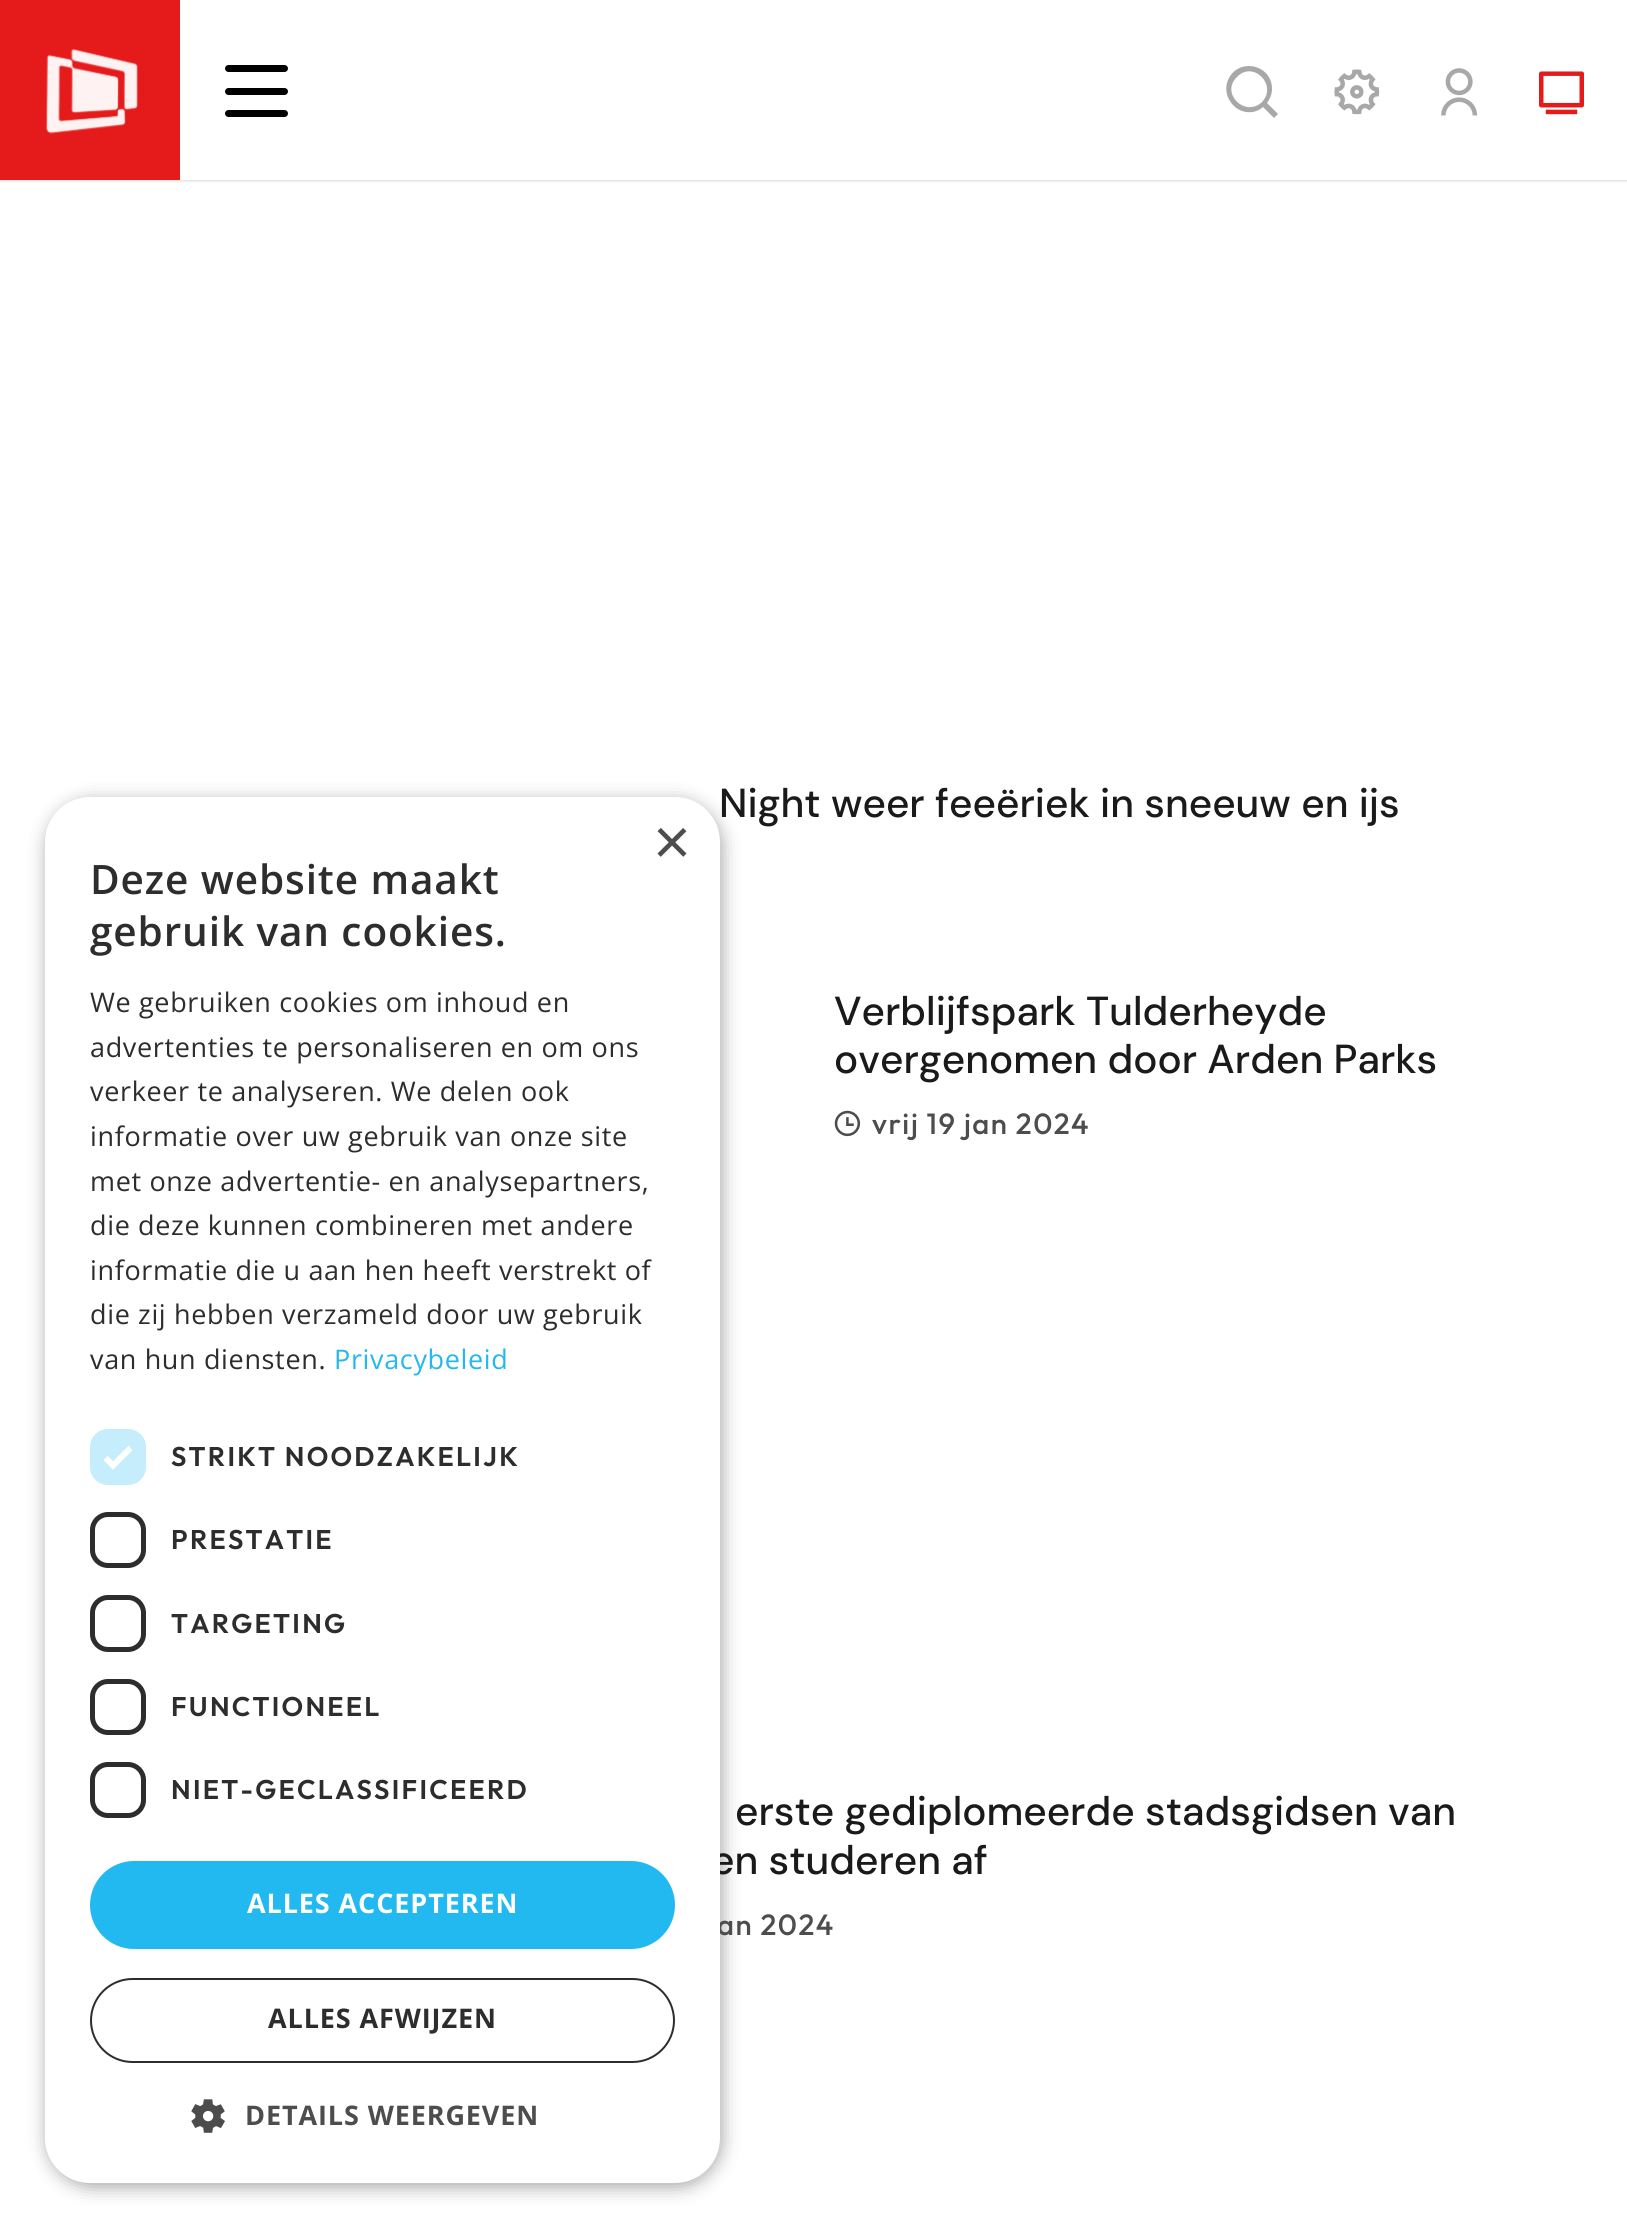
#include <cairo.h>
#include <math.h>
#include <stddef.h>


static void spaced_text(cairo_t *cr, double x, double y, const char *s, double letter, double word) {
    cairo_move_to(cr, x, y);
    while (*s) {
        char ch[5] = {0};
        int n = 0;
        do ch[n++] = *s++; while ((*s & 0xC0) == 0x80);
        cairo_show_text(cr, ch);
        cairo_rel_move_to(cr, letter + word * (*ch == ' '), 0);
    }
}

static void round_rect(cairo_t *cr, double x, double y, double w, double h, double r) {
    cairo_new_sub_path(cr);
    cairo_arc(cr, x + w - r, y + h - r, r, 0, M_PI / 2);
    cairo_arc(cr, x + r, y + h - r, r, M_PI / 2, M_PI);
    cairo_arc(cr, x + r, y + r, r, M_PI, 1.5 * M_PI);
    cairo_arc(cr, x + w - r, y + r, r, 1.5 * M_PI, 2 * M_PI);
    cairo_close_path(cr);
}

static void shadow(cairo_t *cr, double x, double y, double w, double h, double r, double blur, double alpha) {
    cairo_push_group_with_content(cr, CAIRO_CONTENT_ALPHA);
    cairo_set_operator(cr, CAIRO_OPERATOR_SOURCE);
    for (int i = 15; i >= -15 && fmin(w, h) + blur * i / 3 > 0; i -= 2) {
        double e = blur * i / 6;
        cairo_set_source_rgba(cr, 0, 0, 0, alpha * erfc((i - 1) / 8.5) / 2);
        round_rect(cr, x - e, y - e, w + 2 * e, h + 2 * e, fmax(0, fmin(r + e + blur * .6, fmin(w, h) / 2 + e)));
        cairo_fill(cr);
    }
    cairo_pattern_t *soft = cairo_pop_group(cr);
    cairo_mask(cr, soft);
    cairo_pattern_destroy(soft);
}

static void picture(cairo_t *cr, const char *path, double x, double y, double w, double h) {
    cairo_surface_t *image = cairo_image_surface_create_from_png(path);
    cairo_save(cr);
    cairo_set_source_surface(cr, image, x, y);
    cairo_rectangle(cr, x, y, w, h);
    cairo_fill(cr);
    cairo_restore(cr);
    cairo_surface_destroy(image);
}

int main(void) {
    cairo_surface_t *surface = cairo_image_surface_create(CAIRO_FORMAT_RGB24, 1627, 2227);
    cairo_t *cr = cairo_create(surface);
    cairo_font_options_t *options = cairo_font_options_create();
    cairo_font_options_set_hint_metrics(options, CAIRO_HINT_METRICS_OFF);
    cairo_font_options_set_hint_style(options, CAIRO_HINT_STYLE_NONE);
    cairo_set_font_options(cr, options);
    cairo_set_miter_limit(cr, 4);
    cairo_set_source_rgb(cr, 1, 1, 1);
    cairo_paint(cr);
    cairo_set_source_rgb(cr, 0, 0, 0);
    shadow(cr, 47, 801, 675, 1386, 45, 9, 0.35);
    cairo_select_font_face(cr, "DM Sans Medium", CAIRO_FONT_SLANT_NORMAL, CAIRO_FONT_WEIGHT_NORMAL);
    cairo_set_font_size(cr, 40.5);
    cairo_set_source_rgb(cr, 0.102, 0.102, 0.102);
    cairo_move_to(cr, 711, 1874);
    cairo_show_text(cr, "en studeren af");
    cairo_select_font_face(cr, "Outfit Medium", CAIRO_FONT_SLANT_NORMAL, CAIRO_FONT_WEIGHT_NORMAL);
    cairo_set_font_size(cr, 29.25);
    cairo_set_source_rgb(cr, 0.302, 0.302, 0.302);
    spaced_text(cr, 717, 1935, "an 2024", 1.5, 0);
    cairo_set_source_rgb(cr, 1, 1, 1);
    round_rect(cr, 45, 797, 675, 1386, 45);
    cairo_fill(cr);
    cairo_select_font_face(cr, "Liberation Sans", CAIRO_FONT_SLANT_NORMAL, CAIRO_FONT_WEIGHT_NORMAL);
    cairo_set_font_size(cr, 65);
    cairo_set_source_rgb(cr, 0.302, 0.302, 0.302);
    cairo_move_to(cr, 653, 864);
    cairo_show_text(cr, "×");
    cairo_select_font_face(cr, "Open Sans SemiBold", CAIRO_FONT_SLANT_NORMAL, CAIRO_FONT_WEIGHT_NORMAL);
    cairo_set_font_size(cr, 40.5);
    cairo_set_source_rgb(cr, 0.176, 0.176, 0.176);
    spaced_text(cr, 90, 894, "Deze website maakt", 0.9, 0);
    spaced_text(cr, 90, 946, "gebruik van cookies.", 0.9, 0);
    cairo_select_font_face(cr, "Open Sans", CAIRO_FONT_SLANT_NORMAL, CAIRO_FONT_WEIGHT_NORMAL);
    cairo_set_font_size(cr, 27);
    spaced_text(cr, 90, 1012, "We gebruiken cookies om inhoud en", 0.65, 0);
    spaced_text(cr, 90, 1057, "advertenties te personaliseren en om ons", 0.65, 0);
    spaced_text(cr, 90, 1101, "verkeer te analyseren. We delen ook", 0.65, 0);
    spaced_text(cr, 90, 1146, "informatie over uw gebruik van onze site", 0.65, 0);
    spaced_text(cr, 90, 1191, "met onze advertentie- en analysepartners,", 0.65, 0);
    spaced_text(cr, 90, 1235, "die deze kunnen combineren met andere", 0.65, 0);
    spaced_text(cr, 90, 1280, "informatie die u aan hen heeft verstrekt of", 0.65, 0);
    spaced_text(cr, 90, 1324, "die zij hebben verzameld door uw gebruik", 0.65, 0);
    spaced_text(cr, 90, 1369, "van hun diensten.", 0.65, 0);
    cairo_set_source_rgb(cr, 0.133, 0.722, 0.941);
    spaced_text(cr, 334, 1369, "Privacybeleid", 0.65, 0);
    cairo_set_source_rgb(cr, 0.776, 0.929, 0.984);
    round_rect(cr, 90, 1429, 56, 56, 18);
    cairo_fill(cr);
    cairo_new_path(cr);
    cairo_move_to(cr, 105.5, 1458);
    cairo_line_to(cr, 113, 1465.5);
    cairo_line_to(cr, 130.5, 1448);
    cairo_set_source_rgb(cr, 1, 1, 1);
    cairo_set_line_width(cr, 5.9);
    cairo_stroke(cr);
    cairo_select_font_face(cr, "Outfit SemiBold", CAIRO_FONT_SLANT_NORMAL, CAIRO_FONT_WEIGHT_NORMAL);
    cairo_set_source_rgb(cr, 0.176, 0.176, 0.176);
    spaced_text(cr, 171, 1466, "STRIKT NOODZAKELIJK", 2.25, 0);
    round_rect(cr, 92.5, 1514.5, 51, 51, 15.5);
    cairo_set_line_width(cr, 5);
    cairo_stroke(cr);
    spaced_text(cr, 171, 1549, "PRESTATIE", 2.25, 0);
    round_rect(cr, 92.5, 1597.5, 51, 52, 15.5);
    cairo_stroke(cr);
    spaced_text(cr, 171, 1633, "TARGETING", 2.25, 0);
    round_rect(cr, 92.5, 1681.5, 51, 51, 15.5);
    cairo_stroke(cr);
    spaced_text(cr, 171, 1716, "FUNCTIONEEL", 2.25, 0);
    round_rect(cr, 92.5, 1764.5, 51, 51, 15.5);
    cairo_stroke(cr);
    spaced_text(cr, 171, 1799, "NIET-GECLASSIFICEERD", 2.25, 0);
    cairo_set_source_rgb(cr, 0.133, 0.722, 0.941);
    round_rect(cr, 90, 1861, 585, 88, 44);
    cairo_fill(cr);
    cairo_select_font_face(cr, "Open Sans", CAIRO_FONT_SLANT_NORMAL, CAIRO_FONT_WEIGHT_BOLD);
    cairo_set_source_rgb(cr, 1, 1, 1);
    spaced_text(cr, 247, 1913, "ALLES ACCEPTEREN", 0.9, 0);
    round_rect(cr, 91, 1979, 583, 83, 41.5);
    cairo_set_source_rgb(cr, 0.176, 0.176, 0.176);
    cairo_set_line_width(cr, 2);
    cairo_stroke(cr);
    spaced_text(cr, 268, 2028, "ALLES AFWIJZEN", 0.9, 0);
    picture(cr, "img1.png", 191, 2099, 34, 34);
    cairo_set_source_rgb(cr, 0.302, 0.302, 0.302);
    spaced_text(cr, 245, 2125, "DETAILS WEERGEVEN", 0.9, 0);
    cairo_save(cr);
    cairo_rectangle(cr, 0, 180, 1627, 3);
    cairo_clip(cr);
    cairo_set_source_rgb(cr, 0, 0, 0);
    shadow(cr, 0, 0, 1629, 180, 0, 2, 0.25);
    cairo_restore(cr);
    picture(cr, "img2.png", 0, 0, 180, 180);
    cairo_set_source_rgb(cr, 0, 0, 0);
    round_rect(cr, 225, 88, 63, 7, 3.5);
    cairo_fill(cr);
    round_rect(cr, 225, 65, 63, 7, 3.5);
    cairo_fill(cr);
    round_rect(cr, 225, 110, 63, 7, 3.5);
    cairo_fill(cr);
    cairo_set_source_rgb(cr, 0.659, 0.659, 0.659);
    cairo_new_path(cr);
    cairo_move_to(cr, 1267, 103);
    cairo_line_to(cr, 1278, 114);
    cairo_line_to(cr, 1274, 118);
    cairo_line_to(cr, 1263, 107);
    cairo_curve_to(cr, 1253, 116, 1237, 113, 1230, 101);
    cairo_curve_to(cr, 1226, 95, 1225, 87, 1228, 80);
    cairo_curve_to(cr, 1238, 57, 1272, 64, 1272, 89);
    cairo_curve_to(cr, 1272, 94, 1270, 99, 1267, 103);
    cairo_close_path(cr);
    cairo_move_to(cr, 1262, 102);
    cairo_curve_to(cr, 1278, 85, 1253, 60, 1237, 77);
    cairo_curve_to(cr, 1220, 93, 1245, 118, 1262, 102);
    cairo_close_path(cr);
    cairo_fill(cr);
    picture(cr, "img3.png", 1334, 69, 46, 46);
    picture(cr, "img4.png", 1441, 68, 37, 48);
    picture(cr, "img5.png", 1539, 71, 45, 44);
    cairo_select_font_face(cr, "DM Sans Medium", CAIRO_FONT_SLANT_NORMAL, CAIRO_FONT_WEIGHT_NORMAL);
    cairo_set_font_size(cr, 40.5);
    cairo_set_source_rgb(cr, 0.102, 0.102, 0.102);
    cairo_move_to(cr, 719, 817);
    cairo_show_text(cr, "Night weer feeëriek in sneeuw en ijs");
    cairo_move_to(cr, 834, 1025);
    cairo_show_text(cr, "Verblijfspark Tulderheyde");
    cairo_move_to(cr, 834, 1073);
    cairo_show_text(cr, "overgenomen door Arden Parks");
    picture(cr, "img6.png", 834, 1110, 27, 27);
    cairo_select_font_face(cr, "Outfit Medium", CAIRO_FONT_SLANT_NORMAL, CAIRO_FONT_WEIGHT_NORMAL);
    cairo_set_font_size(cr, 29.25);
    cairo_set_source_rgb(cr, 0.302, 0.302, 0.302);
    spaced_text(cr, 872, 1134, "vrij 19 jan 2024", 1.5, 0);
    cairo_select_font_face(cr, "DM Sans Medium", CAIRO_FONT_SLANT_NORMAL, CAIRO_FONT_WEIGHT_NORMAL);
    cairo_set_font_size(cr, 40.5);
    cairo_set_source_rgb(cr, 0.102, 0.102, 0.102);
    cairo_move_to(cr, 735, 1825);
    cairo_show_text(cr, "erste gediplomeerde stadsgidsen van");
    cairo_surface_write_to_png(surface, "page.png");
    cairo_font_options_destroy(options);
    cairo_destroy(cr);
    cairo_surface_destroy(surface);
    return 0;
}
